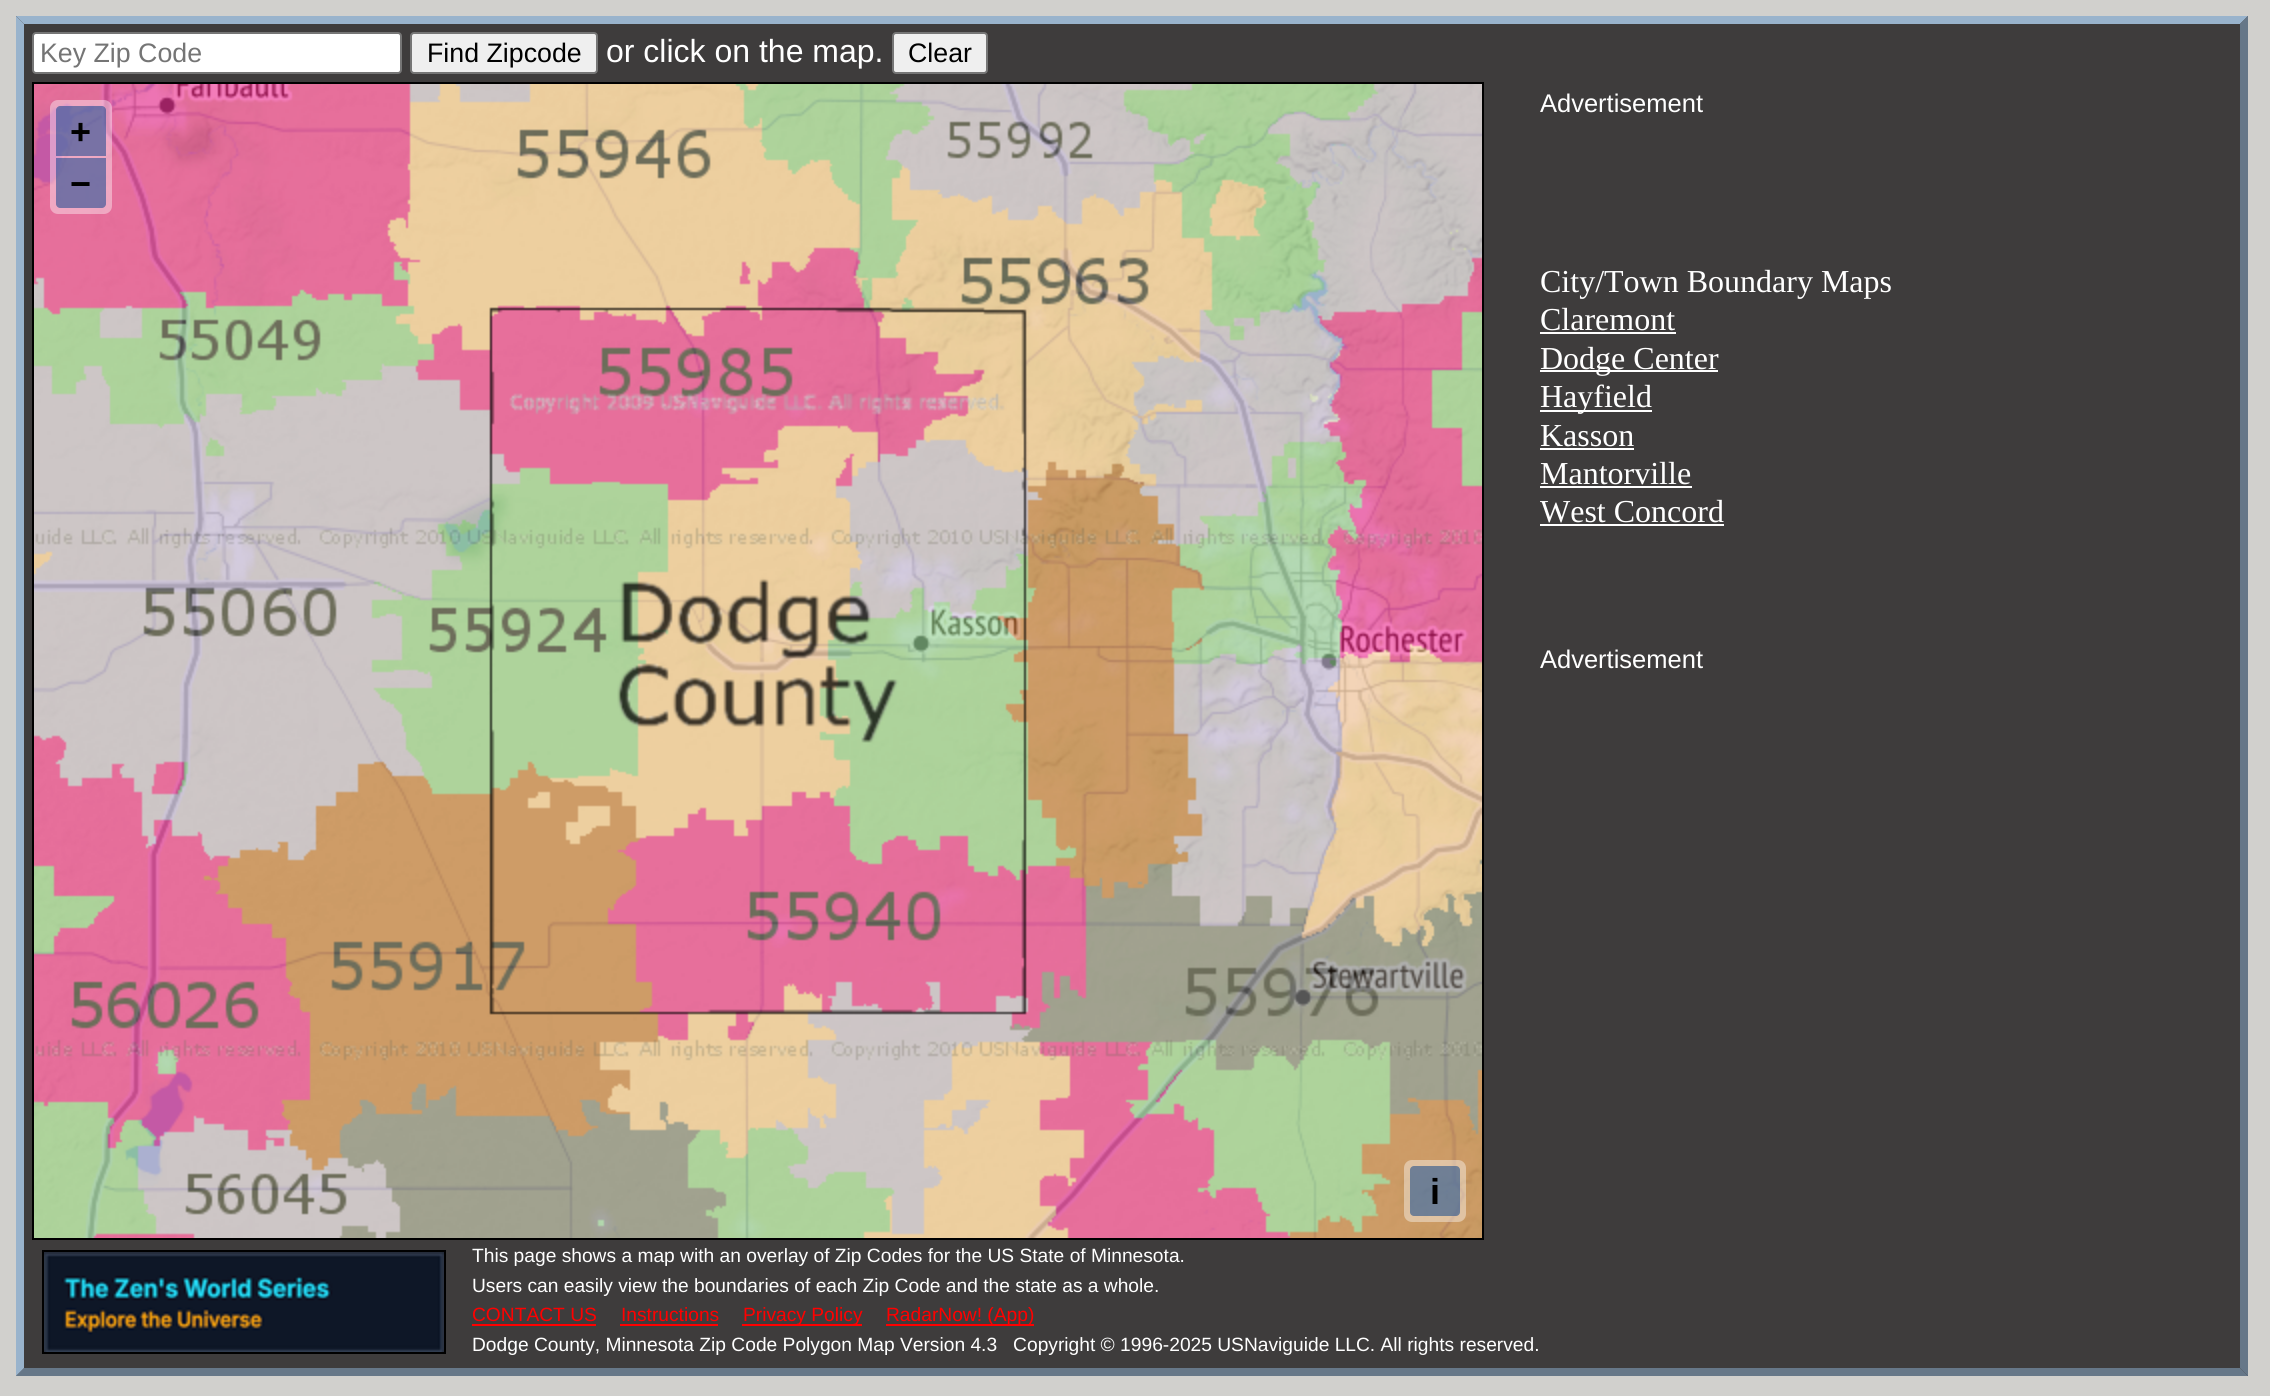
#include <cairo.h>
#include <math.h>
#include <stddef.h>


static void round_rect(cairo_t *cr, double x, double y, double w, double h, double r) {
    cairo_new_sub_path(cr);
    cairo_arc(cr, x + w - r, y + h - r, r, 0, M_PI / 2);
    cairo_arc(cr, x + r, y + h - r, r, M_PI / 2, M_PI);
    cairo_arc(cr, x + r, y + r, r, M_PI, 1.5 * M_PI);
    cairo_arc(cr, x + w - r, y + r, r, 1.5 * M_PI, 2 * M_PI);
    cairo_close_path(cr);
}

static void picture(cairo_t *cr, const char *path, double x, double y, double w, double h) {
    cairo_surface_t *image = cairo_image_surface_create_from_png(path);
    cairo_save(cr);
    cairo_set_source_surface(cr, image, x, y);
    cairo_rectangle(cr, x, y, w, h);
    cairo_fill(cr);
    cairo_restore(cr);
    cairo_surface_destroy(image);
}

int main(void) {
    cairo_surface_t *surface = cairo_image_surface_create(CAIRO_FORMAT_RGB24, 2270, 1396);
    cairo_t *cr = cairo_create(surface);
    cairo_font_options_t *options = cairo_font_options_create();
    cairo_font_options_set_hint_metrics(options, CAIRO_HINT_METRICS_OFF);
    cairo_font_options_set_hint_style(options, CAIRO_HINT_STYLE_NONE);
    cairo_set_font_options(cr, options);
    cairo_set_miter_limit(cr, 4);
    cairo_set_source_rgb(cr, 0.82, 0.816, 0.804);
    cairo_paint(cr);
    cairo_set_source_rgb(cr, 0.243, 0.235, 0.235);
    cairo_rectangle(cr, 16, 16, 2232, 1360);
    cairo_fill(cr);
    cairo_set_source_rgb(cr, 0.6, 0.702, 0.8);
    cairo_new_path(cr);
    cairo_move_to(cr, 16, 16);
    cairo_line_to(cr, 2248, 16);
    cairo_line_to(cr, 2240, 24);
    cairo_line_to(cr, 24, 24);
    cairo_close_path(cr);
    cairo_fill(cr);
    cairo_set_source_rgb(cr, 0.4, 0.467, 0.533);
    cairo_new_path(cr);
    cairo_move_to(cr, 2248, 16);
    cairo_line_to(cr, 2248, 1376);
    cairo_line_to(cr, 2240, 1368);
    cairo_line_to(cr, 2240, 24);
    cairo_close_path(cr);
    cairo_fill(cr);
    cairo_new_path(cr);
    cairo_move_to(cr, 2248, 1376);
    cairo_line_to(cr, 16, 1376);
    cairo_line_to(cr, 24, 1368);
    cairo_line_to(cr, 2240, 1368);
    cairo_close_path(cr);
    cairo_fill(cr);
    cairo_set_source_rgb(cr, 0.6, 0.702, 0.8);
    cairo_new_path(cr);
    cairo_move_to(cr, 16, 1376);
    cairo_line_to(cr, 16, 16);
    cairo_line_to(cr, 24, 24);
    cairo_line_to(cr, 24, 1368);
    cairo_close_path(cr);
    cairo_fill(cr);
    cairo_set_source_rgb(cr, 1, 1, 1);
    round_rect(cr, 33, 33, 368, 40, 3);
    cairo_fill_preserve(cr);
    cairo_set_source_rgb(cr, 0.463, 0.463, 0.463);
    cairo_stroke(cr);
    cairo_select_font_face(cr, "Liberation Sans", CAIRO_FONT_SLANT_NORMAL, CAIRO_FONT_WEIGHT_NORMAL);
    cairo_set_font_size(cr, 26.75);
    cairo_set_source_rgb(cr, 0.459, 0.459, 0.459);
    cairo_move_to(cr, 40, 62);
    cairo_show_text(cr, "Key Zip Code");
    cairo_set_source_rgb(cr, 0.937, 0.937, 0.937);
    round_rect(cr, 411, 33, 186, 40, 3);
    cairo_fill_preserve(cr);
    cairo_set_source_rgb(cr, 0.463, 0.463, 0.463);
    cairo_stroke(cr);
    cairo_set_source_rgb(cr, 0, 0, 0);
    cairo_move_to(cr, 427, 62);
    cairo_show_text(cr, "Find Zipcode");
    cairo_set_font_size(cr, 32);
    cairo_set_source_rgb(cr, 1, 1, 1);
    cairo_move_to(cr, 606, 62);
    cairo_show_text(cr, "or click on the map.");
    cairo_set_source_rgb(cr, 0.937, 0.937, 0.937);
    round_rect(cr, 893, 33, 94, 40, 3);
    cairo_fill_preserve(cr);
    cairo_set_source_rgb(cr, 0.463, 0.463, 0.463);
    cairo_stroke(cr);
    cairo_set_font_size(cr, 26.75);
    cairo_set_source_rgb(cr, 0, 0, 0);
    cairo_move_to(cr, 908, 62);
    cairo_show_text(cr, "Clear");
    cairo_rectangle(cr, 33, 83, 1450, 1156);
    cairo_stroke(cr);
    picture(cr, "img1.png", 34, 84, 1448, 1154);
    cairo_set_source_rgba(cr, 1, 1, 1, 0.4);
    round_rect(cr, 50, 100, 62, 114, 8);
    cairo_fill(cr);
    cairo_set_source_rgba(cr, 0, 0.235, 0.533, 0.5);
    cairo_new_path(cr);
    cairo_move_to(cr, 60, 106);
    cairo_line_to(cr, 102, 106);
    cairo_curve_to(cr, 104, 106, 106, 108, 106, 110);
    cairo_line_to(cr, 106, 156);
    cairo_line_to(cr, 56, 156);
    cairo_line_to(cr, 56, 110);
    cairo_curve_to(cr, 56, 108, 58, 106, 60, 106);
    cairo_close_path(cr);
    cairo_fill(cr);
    cairo_select_font_face(cr, "Liberation Sans", CAIRO_FONT_SLANT_NORMAL, CAIRO_FONT_WEIGHT_BOLD);
    cairo_set_font_size(cr, 36);
    cairo_set_source_rgb(cr, 0, 0, 0);
    cairo_move_to(cr, 70, 144);
    cairo_show_text(cr, "+");
    cairo_set_source_rgba(cr, 0, 0.235, 0.533, 0.5);
    cairo_new_path(cr);
    cairo_move_to(cr, 56, 158);
    cairo_line_to(cr, 106, 158);
    cairo_line_to(cr, 106, 204);
    cairo_curve_to(cr, 106, 206, 104, 208, 102, 208);
    cairo_line_to(cr, 60, 208);
    cairo_curve_to(cr, 58, 208, 56, 206, 56, 204);
    cairo_close_path(cr);
    cairo_fill(cr);
    cairo_set_source_rgb(cr, 0, 0, 0);
    cairo_move_to(cr, 70, 196);
    cairo_show_text(cr, "−");
    cairo_set_source_rgba(cr, 1, 1, 1, 0.4);
    round_rect(cr, 1404, 1160, 62, 62, 8);
    cairo_fill(cr);
    cairo_set_source_rgba(cr, 0, 0.235, 0.533, 0.5);
    round_rect(cr, 1410, 1166, 50, 50, 4);
    cairo_fill(cr);
    cairo_set_source_rgb(cr, 0, 0, 0);
    cairo_move_to(cr, 1430, 1204);
    cairo_show_text(cr, "i");
    cairo_select_font_face(cr, "Liberation Sans", CAIRO_FONT_SLANT_NORMAL, CAIRO_FONT_WEIGHT_NORMAL);
    cairo_set_font_size(cr, 25.5);
    cairo_set_source_rgb(cr, 1, 1, 1);
    cairo_move_to(cr, 1540, 112);
    cairo_show_text(cr, "Advertisement");
    cairo_select_font_face(cr, "Liberation Serif", CAIRO_FONT_SLANT_NORMAL, CAIRO_FONT_WEIGHT_NORMAL);
    cairo_set_font_size(cr, 32);
    cairo_move_to(cr, 1540, 292);
    cairo_show_text(cr, "City/Town Boundary Maps");
    cairo_move_to(cr, 1540, 330);
    cairo_show_text(cr, "Claremont");
    cairo_rectangle(cr, 1540, 332, 136, 2);
    cairo_fill(cr);
    cairo_rectangle(cr, 1540, 370, 178, 2);
    cairo_fill(cr);
    cairo_move_to(cr, 1540, 369);
    cairo_show_text(cr, "Dodge Center");
    cairo_rectangle(cr, 1540, 410, 112, 2);
    cairo_fill(cr);
    cairo_move_to(cr, 1540, 407);
    cairo_show_text(cr, "Hayfield");
    cairo_move_to(cr, 1540, 446);
    cairo_show_text(cr, "Kasson");
    cairo_rectangle(cr, 1540, 448, 94, 2);
    cairo_fill(cr);
    cairo_move_to(cr, 1540, 484);
    cairo_show_text(cr, "Mantorville");
    cairo_rectangle(cr, 1540, 486, 152, 2);
    cairo_fill(cr);
    cairo_move_to(cr, 1540, 522);
    cairo_show_text(cr, "West Concord");
    cairo_rectangle(cr, 1540, 524, 184, 2);
    cairo_fill(cr);
    cairo_select_font_face(cr, "Liberation Sans", CAIRO_FONT_SLANT_NORMAL, CAIRO_FONT_WEIGHT_NORMAL);
    cairo_set_font_size(cr, 25.5);
    cairo_move_to(cr, 1540, 668);
    cairo_show_text(cr, "Advertisement");
    cairo_rectangle(cr, 43, 1251, 402, 102);
    cairo_set_source_rgb(cr, 0, 0, 0);
    cairo_stroke(cr);
    picture(cr, "img2.png", 44, 1252, 400, 100);
    cairo_set_font_size(cr, 19.2);
    cairo_set_source_rgb(cr, 1, 1, 1);
    cairo_move_to(cr, 472, 1262);
    cairo_show_text(cr, "This page shows a map with an overlay of Zip Codes for the US State of Minnesota.");
    cairo_move_to(cr, 472, 1292);
    cairo_show_text(cr, "Users can easily view the boundaries of each Zip Code and the state as a whole.");
    cairo_set_source_rgb(cr, 1, 0, 0);
    cairo_move_to(cr, 472, 1321);
    cairo_show_text(cr, "CONTACT US");
    cairo_rectangle(cr, 472, 1324, 124, 2);
    cairo_fill(cr);
    cairo_move_to(cr, 621, 1321);
    cairo_show_text(cr, "Instructions");
    cairo_rectangle(cr, 620, 1324, 98, 2);
    cairo_fill(cr);
    cairo_rectangle(cr, 742, 1324, 120, 2);
    cairo_fill(cr);
    cairo_move_to(cr, 743, 1321);
    cairo_show_text(cr, "Privacy Policy");
    cairo_rectangle(cr, 886, 1324, 148, 2);
    cairo_fill(cr);
    cairo_move_to(cr, 886, 1321);
    cairo_show_text(cr, "RadarNow! (App)");
    cairo_set_source_rgb(cr, 1, 1, 1);
    cairo_move_to(cr, 472, 1351);
    cairo_show_text(cr, "Dodge County, Minnesota Zip Code Polygon Map Version 4.3   Copyright © 1996-2025 USNaviguide LLC. All rights reserved.");
    cairo_surface_write_to_png(surface, "page.png");
    cairo_font_options_destroy(options);
    cairo_destroy(cr);
    cairo_surface_destroy(surface);
    return 0;
}
